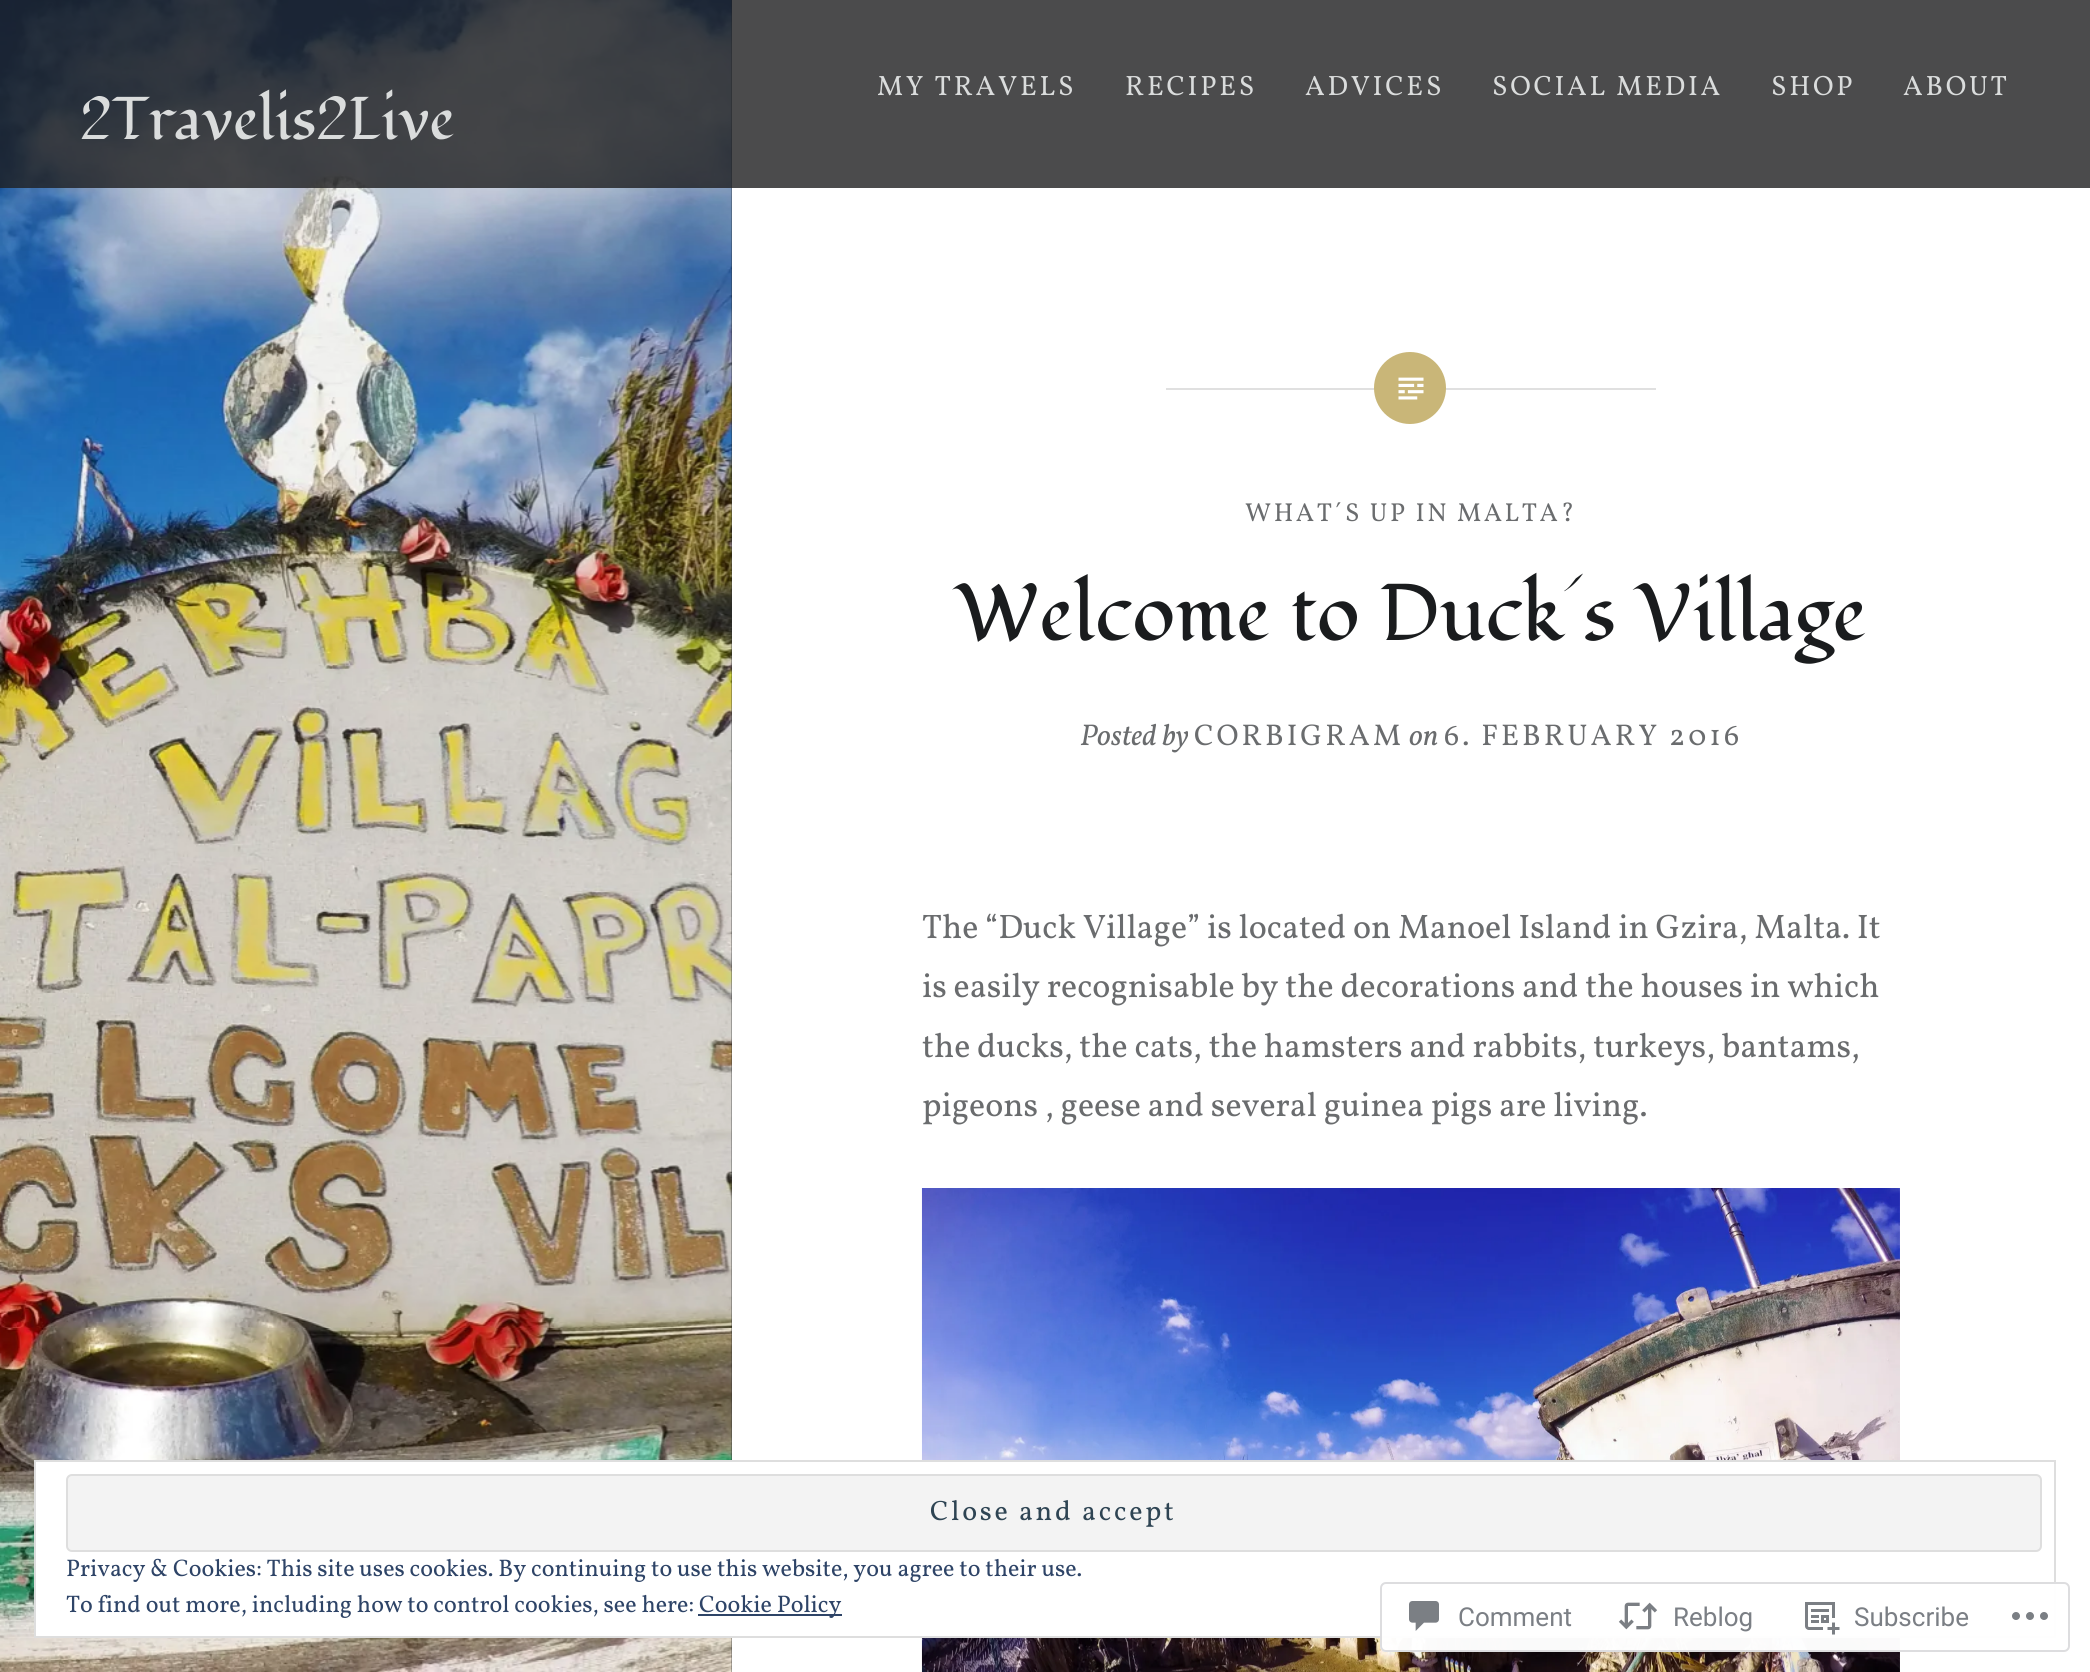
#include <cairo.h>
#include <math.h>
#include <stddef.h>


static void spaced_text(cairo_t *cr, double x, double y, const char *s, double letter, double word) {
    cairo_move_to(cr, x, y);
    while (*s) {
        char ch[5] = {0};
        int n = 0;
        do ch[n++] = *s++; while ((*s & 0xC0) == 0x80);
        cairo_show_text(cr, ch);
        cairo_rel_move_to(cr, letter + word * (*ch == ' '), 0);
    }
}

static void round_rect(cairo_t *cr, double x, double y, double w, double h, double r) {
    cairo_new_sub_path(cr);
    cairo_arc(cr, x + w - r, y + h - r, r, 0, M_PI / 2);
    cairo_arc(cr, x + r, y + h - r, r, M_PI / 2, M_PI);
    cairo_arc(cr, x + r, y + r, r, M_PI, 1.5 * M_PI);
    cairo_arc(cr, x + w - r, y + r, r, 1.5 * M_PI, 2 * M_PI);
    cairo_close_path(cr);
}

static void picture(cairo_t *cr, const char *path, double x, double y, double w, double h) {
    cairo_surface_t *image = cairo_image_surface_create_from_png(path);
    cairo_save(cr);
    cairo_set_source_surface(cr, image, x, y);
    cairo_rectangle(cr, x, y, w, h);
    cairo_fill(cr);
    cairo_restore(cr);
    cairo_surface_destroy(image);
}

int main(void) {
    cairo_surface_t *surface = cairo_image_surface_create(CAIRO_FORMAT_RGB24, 2090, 1672);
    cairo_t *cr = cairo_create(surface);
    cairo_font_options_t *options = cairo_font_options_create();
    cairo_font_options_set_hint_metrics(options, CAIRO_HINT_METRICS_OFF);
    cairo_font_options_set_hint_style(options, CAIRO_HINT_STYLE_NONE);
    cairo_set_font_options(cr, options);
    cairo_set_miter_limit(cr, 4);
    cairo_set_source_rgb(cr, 0.141, 0.149, 0.161);
    cairo_paint(cr);
    cairo_set_source_rgb(cr, 1, 1, 1);
    cairo_rectangle(cr, 732, 0, 1358, 1672);
    cairo_fill(cr);
    picture(cr, "img1.png", 0, 0, 732, 1672);
    cairo_set_source_rgba(cr, 0.118, 0.118, 0.125, 0.8);
    cairo_rectangle(cr, 0, 0, 2090, 188);
    cairo_fill(cr);
    cairo_select_font_face(cr, "Vollkorn", CAIRO_FONT_SLANT_NORMAL, CAIRO_FONT_WEIGHT_NORMAL);
    cairo_set_font_size(cr, 28);
    cairo_set_source_rgb(cr, 0.855, 0.863, 0.863);
    spaced_text(cr, 877, 95, "MY TRAVELS", 2.75, 0);
    spaced_text(cr, 1125, 95, "RECIPES", 2.75, 0);
    spaced_text(cr, 1305, 95, "ADVICES", 2.75, 0);
    spaced_text(cr, 1492, 95, "SOCIAL MEDIA", 2.75, 0);
    spaced_text(cr, 1771, 95, "SHOP", 2.75, 0);
    spaced_text(cr, 1903, 95, "ABOUT", 2.75, 0);
    cairo_select_font_face(cr, "Fondamento", CAIRO_FONT_SLANT_NORMAL, CAIRO_FONT_WEIGHT_NORMAL);
    cairo_set_font_size(cr, 60);
    cairo_move_to(cr, 80, 139);
    cairo_show_text(cr, "2Travelis2Live");
    cairo_set_source_rgb(cr, 0.878, 0.878, 0.878);
    cairo_rectangle(cr, 1166, 388, 490, 2);
    cairo_fill(cr);
    cairo_set_source_rgb(cr, 0.788, 0.714, 0.471);
    cairo_arc(cr, 1410, 388, 36, 0, 2 * M_PI);
    cairo_fill(cr);
    picture(cr, "img2.png", 1398, 377, 26, 23);
    cairo_select_font_face(cr, "Vollkorn", CAIRO_FONT_SLANT_NORMAL, CAIRO_FONT_WEIGHT_NORMAL);
    cairo_set_font_size(cr, 26);
    cairo_set_source_rgb(cr, 0.416, 0.424, 0.431);
    spaced_text(cr, 1245, 521, "WHAT´S UP IN MALTA?", 2.6, 0);
    cairo_select_font_face(cr, "Fondamento", CAIRO_FONT_SLANT_NORMAL, CAIRO_FONT_WEIGHT_NORMAL);
    cairo_set_font_size(cr, 80);
    cairo_set_source_rgb(cr, 0.102, 0.11, 0.118);
    cairo_move_to(cr, 955, 640);
    cairo_show_text(cr, "Welcome to Duck´s Village");
    cairo_select_font_face(cr, "Vollkorn", CAIRO_FONT_SLANT_ITALIC, CAIRO_FONT_WEIGHT_NORMAL);
    cairo_set_font_size(cr, 30);
    cairo_set_source_rgb(cr, 0.416, 0.424, 0.431);
    cairo_move_to(cr, 1080, 745);
    cairo_show_text(cr, "Posted by");
    cairo_select_font_face(cr, "Vollkorn", CAIRO_FONT_SLANT_NORMAL, CAIRO_FONT_WEIGHT_NORMAL);
    spaced_text(cr, 1194, 745, "CORBIGRAM", 3, 0);
    cairo_select_font_face(cr, "Vollkorn", CAIRO_FONT_SLANT_ITALIC, CAIRO_FONT_WEIGHT_NORMAL);
    cairo_move_to(cr, 1409, 745);
    cairo_show_text(cr, "on");
    cairo_select_font_face(cr, "Vollkorn", CAIRO_FONT_SLANT_NORMAL, CAIRO_FONT_WEIGHT_NORMAL);
    spaced_text(cr, 1444, 745, "6. FEBRUARY 2016", 3, 0);
    cairo_set_font_size(cr, 34);
    cairo_move_to(cr, 922, 938);
    cairo_show_text(cr, "The “Duck Village” is located on Manoel Island in Gzira, Malta. It");
    cairo_move_to(cr, 922, 997);
    cairo_show_text(cr, "is easily recognisable by the decorations and the houses in which");
    cairo_move_to(cr, 922, 1057);
    cairo_show_text(cr, "the ducks, the cats, the hamsters and rabbits, turkeys, bantams,");
    cairo_move_to(cr, 922, 1116);
    cairo_show_text(cr, "pigeons , geese and several guinea pigs are living.");
    picture(cr, "img3.png", 921, 1188, 979, 484);
    cairo_set_source_rgb(cr, 1, 1, 1);
    cairo_rectangle(cr, 36, 1462, 1864, 174);
    cairo_fill(cr);
    cairo_rectangle(cr, 35, 1461, 2020, 176);
    cairo_set_source_rgb(cr, 0.871, 0.871, 0.871);
    cairo_stroke(cr);
    cairo_set_source_rgb(cr, 0.953, 0.953, 0.953);
    round_rect(cr, 67, 1475, 1974, 76, 5);
    cairo_fill_preserve(cr);
    cairo_set_source_rgb(cr, 0.871, 0.871, 0.871);
    cairo_stroke(cr);
    cairo_set_font_size(cr, 28);
    cairo_set_source_rgb(cr, 0.18, 0.267, 0.325);
    spaced_text(cr, 930, 1520, "Close and accept", 2.75, 0);
    cairo_set_font_size(cr, 24);
    cairo_set_source_rgb(cr, 0.18, 0.267, 0.404);
    cairo_move_to(cr, 66, 1576);
    cairo_show_text(cr, "Privacy & Cookies: This site uses cookies. By continuing to use this website, you agree to their use.");
    cairo_move_to(cr, 66, 1612);
    cairo_show_text(cr, "To find out more, including how to control cookies, see here:");
    cairo_rectangle(cr, 698, 1614, 144, 2);
    cairo_fill(cr);
    cairo_move_to(cr, 699, 1612);
    cairo_show_text(cr, "Cookie Policy");
    cairo_set_source_rgba(cr, 1, 1, 1, 0.98);
    round_rect(cr, 1380, 1582, 690, 70, 6);
    cairo_fill(cr);
    round_rect(cr, 1381, 1583, 688, 68, 5);
    cairo_set_source_rgba(cr, 0.863, 0.863, 0.871, 0.98);
    cairo_stroke(cr);
    picture(cr, "img4.png", 1409, 1601, 30, 30);
    cairo_select_font_face(cr, "Roboto", CAIRO_FONT_SLANT_NORMAL, CAIRO_FONT_WEIGHT_NORMAL);
    cairo_set_font_size(cr, 26);
    cairo_set_source_rgb(cr, 0.482, 0.498, 0.522);
    cairo_move_to(cr, 1458, 1626);
    cairo_show_text(cr, "Comment");
    picture(cr, "img5.png", 1618, 1602, 40, 28);
    cairo_move_to(cr, 1673, 1626);
    cairo_show_text(cr, "Reblog");
    picture(cr, "img6.png", 1805, 1602, 35, 33);
    cairo_move_to(cr, 1854, 1626);
    cairo_show_text(cr, "Subscribe");
    picture(cr, "img7.png", 2012, 1612, 36, 8);
    cairo_surface_write_to_png(surface, "page.png");
    cairo_font_options_destroy(options);
    cairo_destroy(cr);
    cairo_surface_destroy(surface);
    return 0;
}
